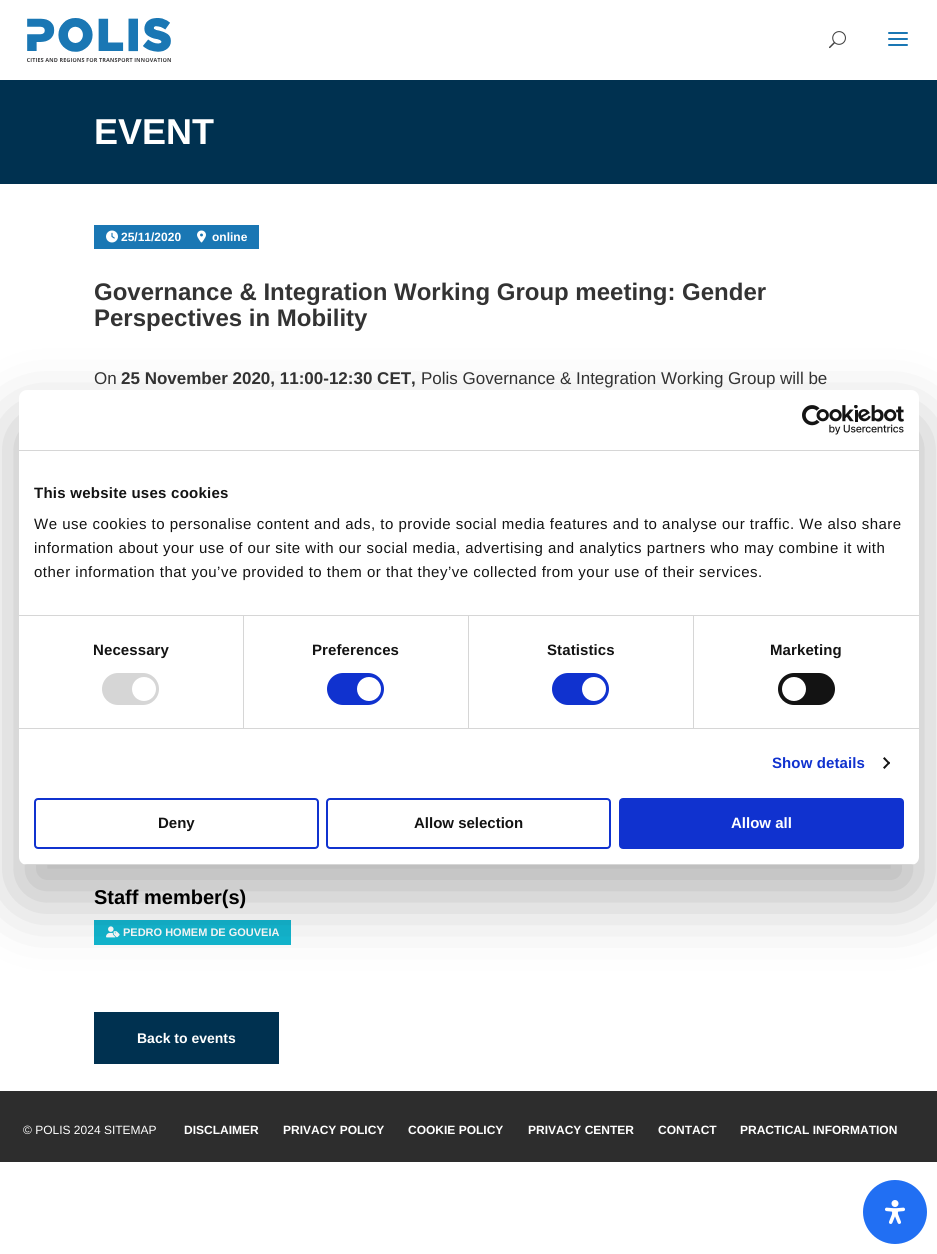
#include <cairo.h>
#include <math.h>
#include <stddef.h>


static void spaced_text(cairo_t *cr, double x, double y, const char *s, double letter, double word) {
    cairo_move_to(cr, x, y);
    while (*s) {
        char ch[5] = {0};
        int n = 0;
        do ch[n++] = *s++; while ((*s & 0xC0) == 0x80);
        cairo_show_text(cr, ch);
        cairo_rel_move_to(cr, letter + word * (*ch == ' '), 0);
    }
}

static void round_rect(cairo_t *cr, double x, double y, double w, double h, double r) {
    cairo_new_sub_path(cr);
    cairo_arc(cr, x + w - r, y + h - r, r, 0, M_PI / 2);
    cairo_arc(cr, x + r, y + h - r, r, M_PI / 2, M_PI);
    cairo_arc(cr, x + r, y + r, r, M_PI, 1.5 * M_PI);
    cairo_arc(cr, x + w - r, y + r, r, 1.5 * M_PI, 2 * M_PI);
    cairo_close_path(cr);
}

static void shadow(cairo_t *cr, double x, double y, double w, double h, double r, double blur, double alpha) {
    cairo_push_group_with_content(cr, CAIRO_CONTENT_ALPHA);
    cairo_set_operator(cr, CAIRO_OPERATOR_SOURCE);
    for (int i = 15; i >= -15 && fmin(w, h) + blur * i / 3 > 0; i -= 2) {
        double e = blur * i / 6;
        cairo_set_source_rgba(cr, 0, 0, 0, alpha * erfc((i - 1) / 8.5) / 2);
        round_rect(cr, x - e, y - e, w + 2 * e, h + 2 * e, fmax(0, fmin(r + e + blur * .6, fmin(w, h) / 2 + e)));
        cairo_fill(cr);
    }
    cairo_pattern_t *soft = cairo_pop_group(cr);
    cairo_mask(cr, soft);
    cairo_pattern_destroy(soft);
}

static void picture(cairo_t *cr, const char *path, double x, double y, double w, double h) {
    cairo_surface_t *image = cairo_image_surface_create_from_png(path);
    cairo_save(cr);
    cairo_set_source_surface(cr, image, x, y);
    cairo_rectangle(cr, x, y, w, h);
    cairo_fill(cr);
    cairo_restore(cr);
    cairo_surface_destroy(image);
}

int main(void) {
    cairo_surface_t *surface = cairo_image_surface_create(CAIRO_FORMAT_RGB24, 937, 1254);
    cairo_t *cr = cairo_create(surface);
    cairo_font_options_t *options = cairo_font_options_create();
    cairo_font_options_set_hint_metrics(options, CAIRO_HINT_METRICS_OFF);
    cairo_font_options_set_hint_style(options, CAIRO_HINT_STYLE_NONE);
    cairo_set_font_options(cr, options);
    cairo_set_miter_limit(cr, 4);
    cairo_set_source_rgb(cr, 1, 1, 1);
    cairo_paint(cr);
    picture(cr, "img1.png", 27, 18, 144, 44);
    picture(cr, "img2.png", 829, 31, 17, 18);
    picture(cr, "img3.png", 888, 32, 20, 14);
    cairo_set_source_rgb(cr, 0, 0.192, 0.314);
    cairo_rectangle(cr, 0, 80, 937, 104);
    cairo_fill(cr);
    cairo_select_font_face(cr, "Liberation Sans", CAIRO_FONT_SLANT_NORMAL, CAIRO_FONT_WEIGHT_BOLD);
    cairo_set_font_size(cr, 36);
    cairo_set_source_rgb(cr, 1, 1, 1);
    cairo_move_to(cr, 94, 144);
    cairo_show_text(cr, "EVENT");
    cairo_set_source_rgb(cr, 0.102, 0.467, 0.706);
    cairo_rectangle(cr, 94, 225, 165, 24);
    cairo_fill(cr);
    picture(cr, "img4.png", 106, 230, 12, 13);
    cairo_set_font_size(cr, 12);
    cairo_set_source_rgb(cr, 1, 1, 1);
    cairo_move_to(cr, 121, 241);
    cairo_show_text(cr, "25/11/2020");
    picture(cr, "img5.png", 197, 230, 9, 13);
    cairo_move_to(cr, 212, 241);
    cairo_show_text(cr, "online");
    cairo_set_font_size(cr, 24);
    cairo_set_source_rgb(cr, 0.2, 0.2, 0.2);
    cairo_move_to(cr, 94, 300);
    cairo_show_text(cr, "Governance & Integration Working Group meeting: Gender");
    cairo_move_to(cr, 94, 326);
    cairo_show_text(cr, "Perspectives in Mobility");
    cairo_select_font_face(cr, "Liberation Sans", CAIRO_FONT_SLANT_NORMAL, CAIRO_FONT_WEIGHT_NORMAL);
    cairo_set_font_size(cr, 17);
    cairo_move_to(cr, 94, 384);
    cairo_show_text(cr, "On");
    cairo_select_font_face(cr, "Liberation Sans", CAIRO_FONT_SLANT_NORMAL, CAIRO_FONT_WEIGHT_BOLD);
    cairo_move_to(cr, 121, 384);
    cairo_show_text(cr, "25 November 2020, 11:00-12:30 CET,");
    cairo_select_font_face(cr, "Liberation Sans", CAIRO_FONT_SLANT_NORMAL, CAIRO_FONT_WEIGHT_NORMAL);
    cairo_move_to(cr, 421, 384);
    cairo_show_text(cr, "Polis Governance & Integration Working Group will be");
    cairo_select_font_face(cr, "Liberation Sans", CAIRO_FONT_SLANT_NORMAL, CAIRO_FONT_WEIGHT_BOLD);
    cairo_set_font_size(cr, 20);
    cairo_set_source_rgb(cr, 0, 0, 0);
    cairo_move_to(cr, 94, 904);
    cairo_show_text(cr, "Staff member(s)");
    cairo_set_source_rgb(cr, 0.075, 0.718, 0.816);
    cairo_rectangle(cr, 94, 920, 197, 25);
    cairo_fill(cr);
    picture(cr, "img6.png", 106, 926, 14, 12);
    cairo_set_font_size(cr, 11);
    cairo_set_source_rgb(cr, 1, 1, 1);
    cairo_move_to(cr, 123, 936);
    cairo_show_text(cr, "PEDRO HOMEM DE GOUVEIA");
    cairo_set_source_rgb(cr, 0, 0.192, 0.314);
    cairo_rectangle(cr, 94, 1012, 185, 52);
    cairo_fill(cr);
    cairo_set_font_size(cr, 14);
    cairo_set_source_rgb(cr, 1, 1, 1);
    cairo_move_to(cr, 137, 1043);
    cairo_show_text(cr, "Back to events");
    cairo_set_source_rgb(cr, 0.176, 0.176, 0.176);
    cairo_rectangle(cr, 0, 1091, 937, 71);
    cairo_fill(cr);
    cairo_select_font_face(cr, "Liberation Sans", CAIRO_FONT_SLANT_NORMAL, CAIRO_FONT_WEIGHT_NORMAL);
    cairo_set_font_size(cr, 12);
    cairo_set_source_rgb(cr, 1, 1, 1);
    cairo_move_to(cr, 23, 1134);
    cairo_show_text(cr, "© POLIS 2024 SITEMAP");
    cairo_select_font_face(cr, "Liberation Sans", CAIRO_FONT_SLANT_NORMAL, CAIRO_FONT_WEIGHT_BOLD);
    cairo_move_to(cr, 184, 1134);
    cairo_show_text(cr, "DISCLAIMER");
    cairo_move_to(cr, 283, 1134);
    cairo_show_text(cr, "PRIVACY POLICY");
    cairo_move_to(cr, 408, 1134);
    cairo_show_text(cr, "COOKIE POLICY");
    cairo_move_to(cr, 528, 1134);
    cairo_show_text(cr, "PRIVACY CENTER");
    cairo_move_to(cr, 658, 1134);
    cairo_show_text(cr, "CONTACT");
    cairo_move_to(cr, 740, 1134);
    cairo_show_text(cr, "PRACTICAL INFORMATION");
    cairo_set_source_rgb(cr, 0, 0, 0);
    shadow(cr, 19, 422, 900, 475, 8, 34, 0.3);
    cairo_set_source_rgb(cr, 1, 1, 1);
    round_rect(cr, 19, 390, 900, 475, 8);
    cairo_fill(cr);
    cairo_set_source_rgb(cr, 0.839, 0.839, 0.839);
    cairo_rectangle(cr, 19, 450, 900, 1);
    cairo_fill(cr);
    picture(cr, "img7.png", 802, 405, 102, 30);
    cairo_rectangle(cr, 19, 615, 900, 1);
    cairo_fill(cr);
    cairo_set_font_size(cr, 15);
    cairo_set_source_rgb(cr, 0.078, 0.078, 0.078);
    spaced_text(cr, 34, 498, "This website uses cookies", 0.25, 0);
    cairo_select_font_face(cr, "Liberation Sans", CAIRO_FONT_SLANT_NORMAL, CAIRO_FONT_WEIGHT_NORMAL);
    spaced_text(cr, 34, 529, "We use cookies to personalise content and ads, to provide social media features and to analyse our traffic. We also share", 0.5, 0);
    spaced_text(cr, 34, 553, "information about your use of our site with our social media, advertising and analytics partners who may combine it with", 0.5, 0);
    spaced_text(cr, 34, 577, "other information that you’ve provided to them or that they’ve collected from your use of their services.", 0.5, 0);
    cairo_set_source_rgb(cr, 0.839, 0.839, 0.839);
    cairo_rectangle(cr, 19, 728, 900, 1);
    cairo_fill(cr);
    cairo_rectangle(cr, 243, 616, 1, 112);
    cairo_fill(cr);
    cairo_select_font_face(cr, "Liberation Sans", CAIRO_FONT_SLANT_NORMAL, CAIRO_FONT_WEIGHT_BOLD);
    cairo_set_source_rgb(cr, 0.078, 0.078, 0.078);
    spaced_text(cr, 93, 655, "Necessary", 0.1, 0);
    cairo_set_source_rgb(cr, 0.839, 0.839, 0.839);
    round_rect(cr, 102, 673, 57, 32, 16);
    cairo_fill(cr);
    cairo_set_source_rgb(cr, 1, 1, 1);
    cairo_arc(cr, 144, 689, 12, 0, 2 * M_PI);
    cairo_fill(cr);
    cairo_set_source_rgb(cr, 0.839, 0.839, 0.839);
    cairo_rectangle(cr, 468, 616, 1, 112);
    cairo_fill(cr);
    cairo_set_source_rgb(cr, 0.078, 0.078, 0.078);
    spaced_text(cr, 312, 655, "Preferences", 0.1, 0);
    cairo_set_source_rgb(cr, 0.063, 0.196, 0.812);
    round_rect(cr, 327, 673, 57, 32, 16);
    cairo_fill(cr);
    cairo_set_source_rgb(cr, 1, 1, 1);
    cairo_arc(cr, 369, 689, 12, 0, 2 * M_PI);
    cairo_fill(cr);
    cairo_set_source_rgb(cr, 0.839, 0.839, 0.839);
    cairo_rectangle(cr, 693, 616, 1, 112);
    cairo_fill(cr);
    cairo_set_source_rgb(cr, 0.078, 0.078, 0.078);
    spaced_text(cr, 547, 655, "Statistics", 0.1, 0);
    cairo_set_source_rgb(cr, 0.063, 0.196, 0.812);
    round_rect(cr, 552, 673, 57, 32, 16);
    cairo_fill(cr);
    cairo_set_source_rgb(cr, 1, 1, 1);
    cairo_arc(cr, 594, 689, 12, 0, 2 * M_PI);
    cairo_fill(cr);
    cairo_set_source_rgb(cr, 0.078, 0.078, 0.078);
    spaced_text(cr, 770, 655, "Marketing", 0.1, 0);
    round_rect(cr, 778, 673, 57, 32, 16);
    cairo_fill(cr);
    cairo_set_source_rgb(cr, 1, 1, 1);
    cairo_arc(cr, 794, 689, 12, 0, 2 * M_PI);
    cairo_fill(cr);
    cairo_set_source_rgb(cr, 0.063, 0.196, 0.812);
    spaced_text(cr, 772, 768, "Show details", 0.1, 0);
    cairo_set_source_rgb(cr, 0.078, 0.078, 0.078);
    cairo_new_path(cr);
    cairo_move_to(cr, 884.5, 757);
    cairo_line_to(cr, 890, 763);
    cairo_line_to(cr, 889, 764.5);
    cairo_line_to(cr, 883, 758.5);
    cairo_close_path(cr);
    cairo_fill(cr);
    cairo_new_path(cr);
    cairo_move_to(cr, 889, 761.5);
    cairo_line_to(cr, 890, 763);
    cairo_line_to(cr, 884.5, 769);
    cairo_line_to(cr, 883, 767.5);
    cairo_close_path(cr);
    cairo_fill(cr);
    cairo_save(cr);
    round_rect(cr, 19, 390, 900, 475, 8);
    cairo_clip(cr);
    cairo_set_source_rgb(cr, 0.839, 0.839, 0.839);
    cairo_rectangle(cr, 19, 864, 900, 1);
    cairo_fill(cr);
    cairo_restore(cr);
    round_rect(cr, 35, 799, 283, 49, 3);
    cairo_set_source_rgb(cr, 0.063, 0.196, 0.812);
    cairo_stroke(cr);
    cairo_set_source_rgb(cr, 0.078, 0.078, 0.078);
    cairo_move_to(cr, 158, 828);
    cairo_show_text(cr, "Deny");
    round_rect(cr, 327, 799, 283, 49, 3);
    cairo_set_source_rgb(cr, 0.063, 0.196, 0.812);
    cairo_stroke(cr);
    cairo_set_source_rgb(cr, 0.078, 0.078, 0.078);
    cairo_move_to(cr, 414, 828);
    cairo_show_text(cr, "Allow selection");
    cairo_set_source_rgb(cr, 0.063, 0.196, 0.812);
    round_rect(cr, 620, 799, 283, 49, 3);
    cairo_fill_preserve(cr);
    cairo_stroke(cr);
    cairo_set_source_rgb(cr, 1, 1, 1);
    cairo_move_to(cr, 731, 828);
    cairo_show_text(cr, "Allow all");
    cairo_set_source_rgb(cr, 0.129, 0.435, 0.953);
    cairo_new_path(cr);
    cairo_arc(cr, 895, 1212, 32, 0, 2 * M_PI);
    cairo_fill(cr);
    picture(cr, "img8.png", 885, 1200, 20, 24);
    cairo_surface_write_to_png(surface, "page.png");
    cairo_font_options_destroy(options);
    cairo_destroy(cr);
    cairo_surface_destroy(surface);
    return 0;
}
